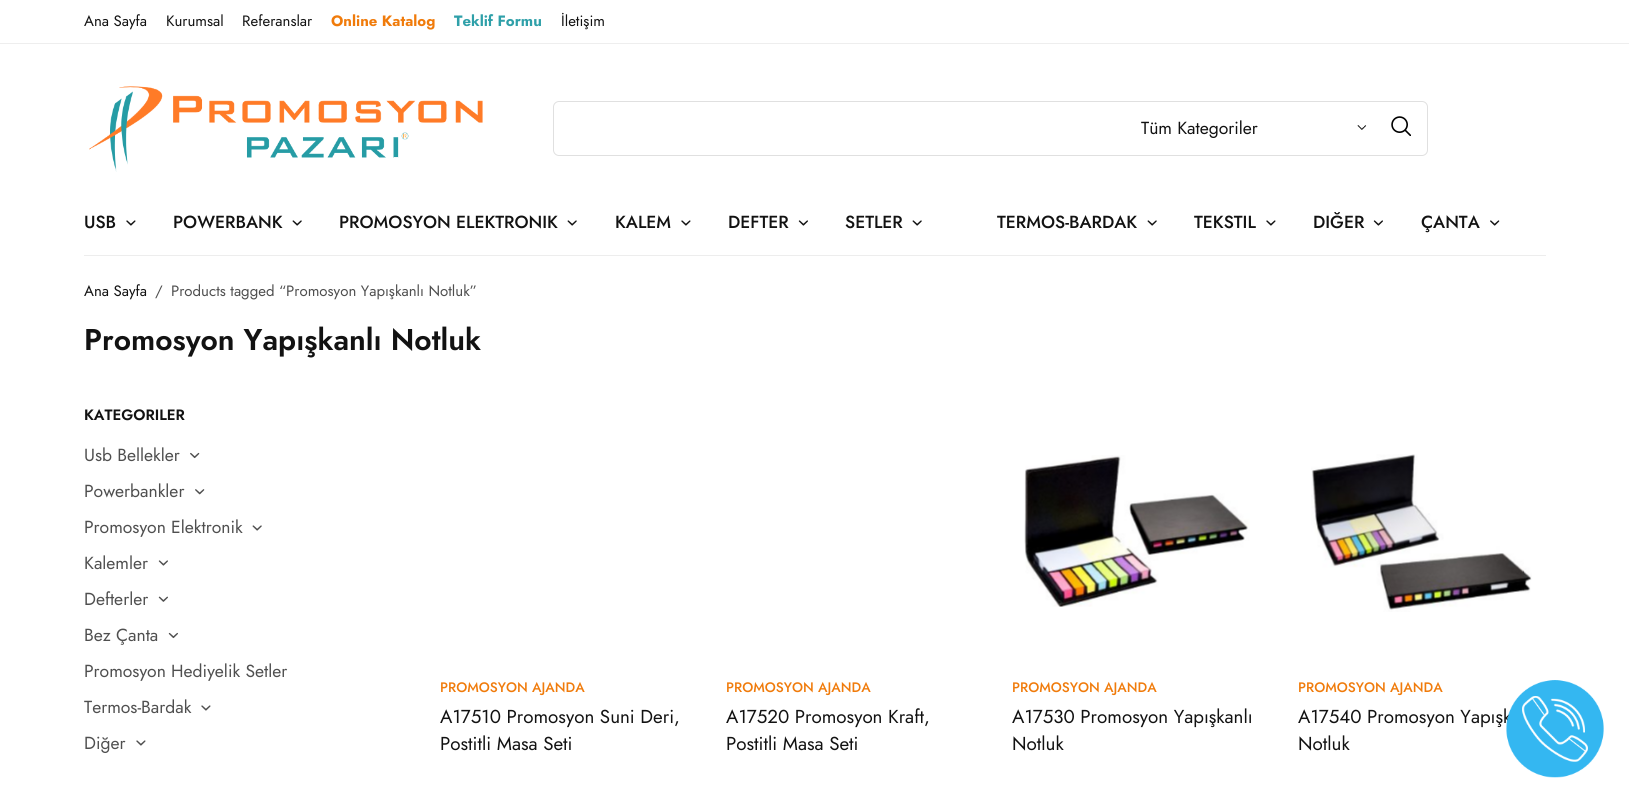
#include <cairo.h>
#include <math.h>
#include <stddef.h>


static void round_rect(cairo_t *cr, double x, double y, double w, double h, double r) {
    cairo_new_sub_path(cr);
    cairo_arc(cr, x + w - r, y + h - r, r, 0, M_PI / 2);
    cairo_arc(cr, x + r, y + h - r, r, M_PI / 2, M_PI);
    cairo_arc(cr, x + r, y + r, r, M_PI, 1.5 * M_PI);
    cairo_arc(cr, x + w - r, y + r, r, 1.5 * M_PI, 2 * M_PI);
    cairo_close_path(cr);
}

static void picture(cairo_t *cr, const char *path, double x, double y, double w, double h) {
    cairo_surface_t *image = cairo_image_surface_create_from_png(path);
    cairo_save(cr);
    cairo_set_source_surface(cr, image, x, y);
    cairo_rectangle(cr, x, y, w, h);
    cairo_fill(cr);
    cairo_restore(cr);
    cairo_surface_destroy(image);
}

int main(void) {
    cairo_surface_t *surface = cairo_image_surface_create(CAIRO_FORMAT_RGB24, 1629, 794);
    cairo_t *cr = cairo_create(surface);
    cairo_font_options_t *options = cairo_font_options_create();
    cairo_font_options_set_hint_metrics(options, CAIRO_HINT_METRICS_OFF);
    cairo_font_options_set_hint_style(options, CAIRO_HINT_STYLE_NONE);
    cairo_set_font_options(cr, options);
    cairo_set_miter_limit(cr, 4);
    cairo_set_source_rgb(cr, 1, 1, 1);
    cairo_paint(cr);
    cairo_set_source_rgb(cr, 0.933, 0.933, 0.933);
    cairo_rectangle(cr, 0, 43, 1629, 1);
    cairo_fill(cr);
    cairo_select_font_face(cr, "Jost", CAIRO_FONT_SLANT_NORMAL, CAIRO_FONT_WEIGHT_NORMAL);
    cairo_set_font_size(cr, 15);
    cairo_set_source_rgb(cr, 0.071, 0.071, 0.071);
    cairo_move_to(cr, 84, 26);
    cairo_show_text(cr, "Ana Sayfa");
    cairo_move_to(cr, 166, 26);
    cairo_show_text(cr, "Kurumsal");
    cairo_move_to(cr, 242, 26);
    cairo_show_text(cr, "Referanslar");
    cairo_select_font_face(cr, "Jost", CAIRO_FONT_SLANT_NORMAL, CAIRO_FONT_WEIGHT_BOLD);
    cairo_set_source_rgb(cr, 0.941, 0.482, 0.043);
    cairo_move_to(cr, 331, 26);
    cairo_show_text(cr, "Online Katalog");
    cairo_set_source_rgb(cr, 0.184, 0.627, 0.663);
    cairo_move_to(cr, 454, 26);
    cairo_show_text(cr, "Teklif Formu");
    cairo_select_font_face(cr, "Jost", CAIRO_FONT_SLANT_NORMAL, CAIRO_FONT_WEIGHT_NORMAL);
    cairo_set_source_rgb(cr, 0.071, 0.071, 0.071);
    cairo_move_to(cr, 561, 26);
    cairo_show_text(cr, "İletişim");
    picture(cr, "img1.png", 89, 86, 394, 86);
    round_rect(cr, 553.5, 101.5, 874, 54, 5.5);
    cairo_set_source_rgb(cr, 0.878, 0.878, 0.878);
    cairo_set_line_width(cr, 1);
    cairo_stroke(cr);
    picture(cr, "img2.png", 1357, 125, 10, 5);
    cairo_set_font_size(cr, 17.5);
    cairo_set_source_rgb(cr, 0.071, 0.071, 0.071);
    cairo_move_to(cr, 1141, 134);
    cairo_show_text(cr, "Tüm Kategoriler");
    picture(cr, "img3.png", 1391, 116, 20, 20);
    cairo_select_font_face(cr, "Jost Medium", CAIRO_FONT_SLANT_NORMAL, CAIRO_FONT_WEIGHT_NORMAL);
    cairo_move_to(cr, 84, 228);
    cairo_show_text(cr, "USB");
    picture(cr, "img4.png", 126, 220, 10, 6);
    cairo_move_to(cr, 173, 228);
    cairo_show_text(cr, "POWERBANK");
    picture(cr, "img5.png", 292, 220, 10, 6);
    cairo_move_to(cr, 339, 228);
    cairo_show_text(cr, "PROMOSYON ELEKTRONIK");
    picture(cr, "img5.png", 567, 220, 10, 6);
    cairo_move_to(cr, 615, 228);
    cairo_show_text(cr, "KALEM");
    picture(cr, "img4.png", 681, 220, 10, 6);
    cairo_move_to(cr, 728, 228);
    cairo_show_text(cr, "DEFTER");
    picture(cr, "img6.png", 798, 220, 10, 6);
    cairo_move_to(cr, 845, 228);
    cairo_show_text(cr, "SETLER");
    picture(cr, "img5.png", 912, 220, 10, 6);
    cairo_move_to(cr, 997, 228);
    cairo_show_text(cr, "TERMOS-BARDAK");
    picture(cr, "img5.png", 1147, 220, 10, 6);
    cairo_move_to(cr, 1194, 228);
    cairo_show_text(cr, "TEKSTIL");
    picture(cr, "img4.png", 1266, 220, 10, 6);
    cairo_move_to(cr, 1313, 228);
    cairo_show_text(cr, "DIĞER");
    picture(cr, "img6.png", 1373, 220, 10, 6);
    cairo_move_to(cr, 1421, 228);
    cairo_show_text(cr, "ÇANTA");
    picture(cr, "img7.png", 1490, 220, 10, 6);
    cairo_set_source_rgb(cr, 0.929, 0.929, 0.929);
    cairo_rectangle(cr, 84, 255, 1462, 1);
    cairo_fill(cr);
    cairo_select_font_face(cr, "Jost", CAIRO_FONT_SLANT_NORMAL, CAIRO_FONT_WEIGHT_NORMAL);
    cairo_set_font_size(cr, 15);
    cairo_set_source_rgb(cr, 0.071, 0.071, 0.071);
    cairo_move_to(cr, 84, 296);
    cairo_show_text(cr, "Ana Sayfa");
    cairo_set_source_rgb(cr, 0.31, 0.31, 0.31);
    cairo_move_to(cr, 155, 296);
    cairo_show_text(cr, "/");
    cairo_move_to(cr, 171, 296);
    cairo_show_text(cr, "Products tagged “Promosyon Yapışkanlı Notluk”");
    cairo_select_font_face(cr, "Jost SemiBold", CAIRO_FONT_SLANT_NORMAL, CAIRO_FONT_WEIGHT_NORMAL);
    cairo_set_font_size(cr, 30);
    cairo_set_source_rgb(cr, 0.071, 0.071, 0.071);
    cairo_move_to(cr, 84, 350);
    cairo_show_text(cr, "Promosyon Yapışkanlı Notluk");
    cairo_set_font_size(cr, 15);
    cairo_move_to(cr, 84, 420);
    cairo_show_text(cr, "KATEGORILER");
    cairo_select_font_face(cr, "Jost", CAIRO_FONT_SLANT_NORMAL, CAIRO_FONT_WEIGHT_NORMAL);
    cairo_set_font_size(cr, 17.5);
    cairo_set_source_rgb(cr, 0.31, 0.31, 0.31);
    cairo_move_to(cr, 84, 461);
    cairo_show_text(cr, "Usb Bellekler");
    picture(cr, "img8.png", 190, 452, 10, 7);
    cairo_move_to(cr, 84, 497);
    cairo_show_text(cr, "Powerbankler");
    picture(cr, "img9.png", 195, 489, 10, 6);
    cairo_move_to(cr, 84, 533);
    cairo_show_text(cr, "Promosyon Elektronik");
    picture(cr, "img10.png", 252, 525, 10, 6);
    cairo_move_to(cr, 84, 569);
    cairo_show_text(cr, "Kalemler");
    picture(cr, "img11.png", 158, 560, 10, 6);
    cairo_move_to(cr, 84, 605);
    cairo_show_text(cr, "Defterler");
    picture(cr, "img12.png", 158, 596, 10, 6);
    cairo_move_to(cr, 84, 641);
    cairo_show_text(cr, "Bez Çanta");
    picture(cr, "img13.png", 168, 632, 10, 7);
    cairo_move_to(cr, 84, 677);
    cairo_show_text(cr, "Promosyon Hediyelik Setler");
    cairo_move_to(cr, 84, 713);
    cairo_show_text(cr, "Termos-Bardak");
    picture(cr, "img14.png", 201, 705, 10, 6);
    cairo_move_to(cr, 84, 749);
    cairo_show_text(cr, "Diğer");
    picture(cr, "img14.png", 136, 740, 10, 6);
    cairo_select_font_face(cr, "Jost Medium", CAIRO_FONT_SLANT_NORMAL, CAIRO_FONT_WEIGHT_NORMAL);
    cairo_set_font_size(cr, 13.75);
    cairo_set_source_rgb(cr, 0.941, 0.482, 0.043);
    cairo_move_to(cr, 440, 692);
    cairo_show_text(cr, "PROMOSYON AJANDA");
    cairo_select_font_face(cr, "Jost", CAIRO_FONT_SLANT_NORMAL, CAIRO_FONT_WEIGHT_NORMAL);
    cairo_set_font_size(cr, 18.75);
    cairo_set_source_rgb(cr, 0.071, 0.071, 0.071);
    cairo_move_to(cr, 440, 723);
    cairo_show_text(cr, "A17510 Promosyon Suni Deri,");
    cairo_move_to(cr, 440, 750);
    cairo_show_text(cr, "Postitli Masa Seti");
    cairo_select_font_face(cr, "Jost Medium", CAIRO_FONT_SLANT_NORMAL, CAIRO_FONT_WEIGHT_NORMAL);
    cairo_set_font_size(cr, 13.75);
    cairo_set_source_rgb(cr, 0.941, 0.482, 0.043);
    cairo_move_to(cr, 726, 692);
    cairo_show_text(cr, "PROMOSYON AJANDA");
    cairo_select_font_face(cr, "Jost", CAIRO_FONT_SLANT_NORMAL, CAIRO_FONT_WEIGHT_NORMAL);
    cairo_set_font_size(cr, 18.75);
    cairo_set_source_rgb(cr, 0.071, 0.071, 0.071);
    cairo_move_to(cr, 726, 723);
    cairo_show_text(cr, "A17520 Promosyon Kraft,");
    cairo_move_to(cr, 726, 750);
    cairo_show_text(cr, "Postitli Masa Seti");
    picture(cr, "img15.png", 1024, 455, 226, 152);
    cairo_select_font_face(cr, "Jost Medium", CAIRO_FONT_SLANT_NORMAL, CAIRO_FONT_WEIGHT_NORMAL);
    cairo_set_font_size(cr, 13.75);
    cairo_set_source_rgb(cr, 0.941, 0.482, 0.043);
    cairo_move_to(cr, 1012, 692);
    cairo_show_text(cr, "PROMOSYON AJANDA");
    cairo_select_font_face(cr, "Jost", CAIRO_FONT_SLANT_NORMAL, CAIRO_FONT_WEIGHT_NORMAL);
    cairo_set_font_size(cr, 18.75);
    cairo_set_source_rgb(cr, 0.071, 0.071, 0.071);
    cairo_move_to(cr, 1012, 723);
    cairo_show_text(cr, "A17530 Promosyon Yapışkanlı");
    cairo_move_to(cr, 1012, 750);
    cairo_show_text(cr, "Notluk");
    picture(cr, "img16.png", 1311, 454, 221, 158);
    cairo_select_font_face(cr, "Jost Medium", CAIRO_FONT_SLANT_NORMAL, CAIRO_FONT_WEIGHT_NORMAL);
    cairo_set_font_size(cr, 13.75);
    cairo_set_source_rgb(cr, 0.941, 0.482, 0.043);
    cairo_move_to(cr, 1298, 692);
    cairo_show_text(cr, "PROMOSYON AJANDA");
    cairo_select_font_face(cr, "Jost", CAIRO_FONT_SLANT_NORMAL, CAIRO_FONT_WEIGHT_NORMAL);
    cairo_set_font_size(cr, 18.75);
    cairo_set_source_rgb(cr, 0.071, 0.071, 0.071);
    cairo_move_to(cr, 1298, 723);
    cairo_show_text(cr, "A17540 Promosyon Yapışk");
    cairo_move_to(cr, 1298, 750);
    cairo_show_text(cr, "Notluk");
    picture(cr, "img17.png", 1506, 680, 98, 98);
    cairo_surface_write_to_png(surface, "page.png");
    cairo_font_options_destroy(options);
    cairo_destroy(cr);
    cairo_surface_destroy(surface);
    return 0;
}
